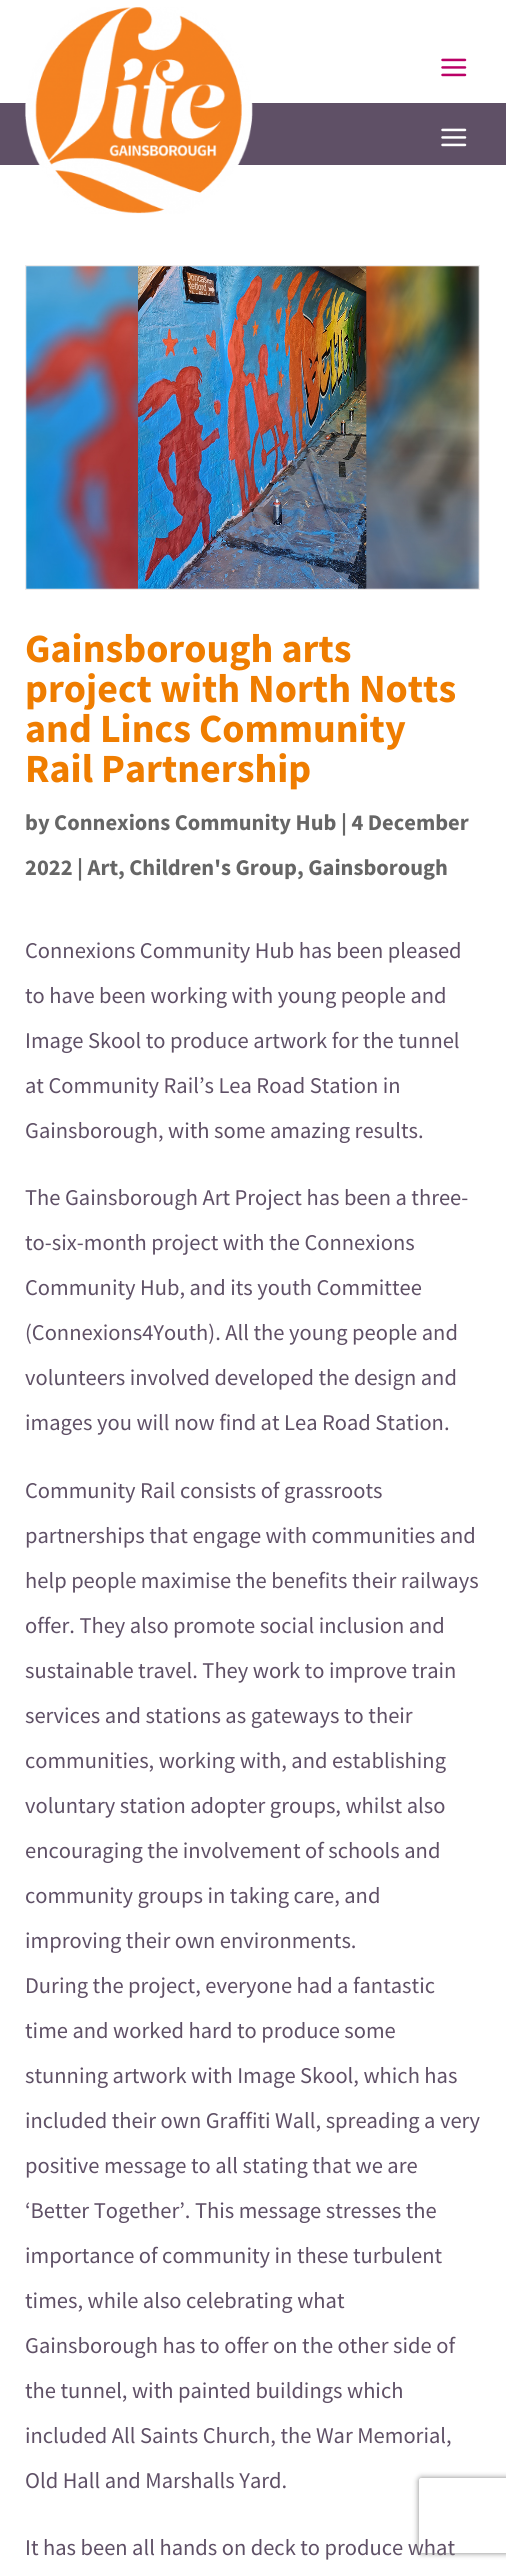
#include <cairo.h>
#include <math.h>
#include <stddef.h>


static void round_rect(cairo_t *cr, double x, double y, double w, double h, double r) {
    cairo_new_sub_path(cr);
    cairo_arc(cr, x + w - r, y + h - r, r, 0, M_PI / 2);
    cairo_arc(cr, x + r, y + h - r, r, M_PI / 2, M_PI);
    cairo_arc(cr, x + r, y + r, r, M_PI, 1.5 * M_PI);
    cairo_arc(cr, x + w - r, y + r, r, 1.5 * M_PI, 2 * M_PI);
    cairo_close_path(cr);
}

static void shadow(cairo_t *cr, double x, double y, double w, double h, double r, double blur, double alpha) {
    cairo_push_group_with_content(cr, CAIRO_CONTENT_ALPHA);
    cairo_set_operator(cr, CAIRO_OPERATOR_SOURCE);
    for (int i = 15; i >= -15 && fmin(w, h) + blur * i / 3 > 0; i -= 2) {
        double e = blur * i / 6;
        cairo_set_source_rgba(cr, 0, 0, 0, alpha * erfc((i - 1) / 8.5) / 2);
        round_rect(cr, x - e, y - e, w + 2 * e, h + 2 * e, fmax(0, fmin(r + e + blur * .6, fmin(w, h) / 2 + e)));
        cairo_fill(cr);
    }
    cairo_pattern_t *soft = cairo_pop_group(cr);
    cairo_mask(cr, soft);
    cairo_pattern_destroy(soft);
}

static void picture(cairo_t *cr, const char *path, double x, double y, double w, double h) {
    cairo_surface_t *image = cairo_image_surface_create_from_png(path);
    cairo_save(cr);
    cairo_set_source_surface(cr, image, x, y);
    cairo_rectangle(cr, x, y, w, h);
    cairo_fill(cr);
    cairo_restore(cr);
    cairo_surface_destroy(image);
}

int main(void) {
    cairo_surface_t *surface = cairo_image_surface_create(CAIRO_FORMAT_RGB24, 506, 2569);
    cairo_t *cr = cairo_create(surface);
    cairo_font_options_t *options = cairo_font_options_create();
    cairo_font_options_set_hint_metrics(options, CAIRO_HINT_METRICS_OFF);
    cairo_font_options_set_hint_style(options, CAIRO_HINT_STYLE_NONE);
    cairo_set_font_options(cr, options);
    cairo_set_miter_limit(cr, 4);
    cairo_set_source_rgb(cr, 1, 1, 1);
    cairo_paint(cr);
    cairo_set_source_rgb(cr, 0.373, 0.314, 0.4);
    cairo_rectangle(cr, 0, 103, 506, 62);
    cairo_fill(cr);
    picture(cr, "img1.png", 25, 7, 228, 207);
    picture(cr, "img2.png", 441, 58, 26, 19);
    picture(cr, "img3.png", 441, 128, 26, 19);
    cairo_rectangle(cr, 25.5, 265.5, 454, 324);
    cairo_set_source_rgb(cr, 0.925, 0.914, 0.914);
    cairo_set_line_width(cr, 1);
    cairo_stroke(cr);
    picture(cr, "img4.png", 26, 266, 453, 323);
    cairo_select_font_face(cr, "Source Sans Pro", CAIRO_FONT_SLANT_NORMAL, CAIRO_FONT_WEIGHT_BOLD);
    cairo_set_font_size(cr, 40);
    cairo_set_source_rgb(cr, 0.937, 0.49, 0);
    cairo_move_to(cr, 25, 662);
    cairo_show_text(cr, "Gainsborough arts");
    cairo_move_to(cr, 25, 702);
    cairo_show_text(cr, "project with North Notts");
    cairo_move_to(cr, 25, 742);
    cairo_show_text(cr, "and Lincs Community");
    cairo_move_to(cr, 25, 782);
    cairo_show_text(cr, "Rail Partnership");
    cairo_set_font_size(cr, 22.5);
    cairo_set_source_rgb(cr, 0.4, 0.4, 0.4);
    cairo_move_to(cr, 25, 830);
    cairo_show_text(cr, "by Connexions Community Hub | 4 December");
    cairo_move_to(cr, 25, 875);
    cairo_show_text(cr, "2022 | Art, Children's Group, Gainsborough");
    cairo_select_font_face(cr, "Source Sans Pro", CAIRO_FONT_SLANT_NORMAL, CAIRO_FONT_WEIGHT_NORMAL);
    cairo_set_source_rgb(cr, 0.373, 0.314, 0.4);
    cairo_move_to(cr, 25, 958);
    cairo_show_text(cr, "Connexions Community Hub has been pleased");
    cairo_move_to(cr, 25, 1003);
    cairo_show_text(cr, "to have been working with young people and");
    cairo_move_to(cr, 25, 1048);
    cairo_show_text(cr, "Image Skool to produce artwork for the tunnel");
    cairo_move_to(cr, 25, 1093);
    cairo_show_text(cr, "at Community Rail’s Lea Road Station in");
    cairo_move_to(cr, 25, 1138);
    cairo_show_text(cr, "Gainsborough, with some amazing results.");
    cairo_move_to(cr, 25, 1205);
    cairo_show_text(cr, "The Gainsborough Art Project has been a three-");
    cairo_move_to(cr, 25, 1250);
    cairo_show_text(cr, "to-six-month project with the Connexions");
    cairo_move_to(cr, 25, 1295);
    cairo_show_text(cr, "Community Hub, and its youth Committee");
    cairo_move_to(cr, 25, 1340);
    cairo_show_text(cr, "(Connexions4Youth). All the young people and");
    cairo_move_to(cr, 25, 1385);
    cairo_show_text(cr, "volunteers involved developed the design and");
    cairo_move_to(cr, 25, 1430);
    cairo_show_text(cr, "images you will now find at Lea Road Station.");
    cairo_move_to(cr, 25, 1498);
    cairo_show_text(cr, "Community Rail consists of grassroots");
    cairo_move_to(cr, 25, 1543);
    cairo_show_text(cr, "partnerships that engage with communities and");
    cairo_move_to(cr, 25, 1588);
    cairo_show_text(cr, "help people maximise the benefits their railways");
    cairo_move_to(cr, 25, 1633);
    cairo_show_text(cr, "offer. They also promote social inclusion and");
    cairo_move_to(cr, 25, 1678);
    cairo_show_text(cr, "sustainable travel. They work to improve train");
    cairo_move_to(cr, 25, 1723);
    cairo_show_text(cr, "services and stations as gateways to their");
    cairo_move_to(cr, 25, 1768);
    cairo_show_text(cr, "communities, working with, and establishing");
    cairo_move_to(cr, 25, 1813);
    cairo_show_text(cr, "voluntary station adopter groups, whilst also");
    cairo_move_to(cr, 25, 1858);
    cairo_show_text(cr, "encouraging the involvement of schools and");
    cairo_move_to(cr, 25, 1903);
    cairo_show_text(cr, "community groups in taking care, and");
    cairo_move_to(cr, 25, 1948);
    cairo_show_text(cr, "improving their own environments.");
    cairo_move_to(cr, 25, 1993);
    cairo_show_text(cr, "During the project, everyone had a fantastic");
    cairo_move_to(cr, 25, 2038);
    cairo_show_text(cr, "time and worked hard to produce some");
    cairo_move_to(cr, 25, 2083);
    cairo_show_text(cr, "stunning artwork with Image Skool, which has");
    cairo_move_to(cr, 25, 2128);
    cairo_show_text(cr, "included their own Graffiti Wall, spreading a very");
    cairo_move_to(cr, 25, 2173);
    cairo_show_text(cr, "positive message to all stating that we are");
    cairo_move_to(cr, 25, 2218);
    cairo_show_text(cr, "‘Better Together’. This message stresses the");
    cairo_move_to(cr, 25, 2263);
    cairo_show_text(cr, "importance of community in these turbulent");
    cairo_move_to(cr, 25, 2308);
    cairo_show_text(cr, "times, while also celebrating what");
    cairo_move_to(cr, 25, 2353);
    cairo_show_text(cr, "Gainsborough has to offer on the other side of");
    cairo_move_to(cr, 25, 2398);
    cairo_show_text(cr, "the tunnel, with painted buildings which");
    cairo_move_to(cr, 25, 2443);
    cairo_show_text(cr, "included All Saints Church, the War Memorial,");
    cairo_move_to(cr, 25, 2488);
    cairo_show_text(cr, "Old Hall and Marshalls Yard.");
    cairo_move_to(cr, 25, 2555);
    cairo_show_text(cr, "It has been all hands on deck to produce what");
    cairo_save(cr);
    cairo_set_fill_rule(cr, CAIRO_FILL_RULE_EVEN_ODD);
    cairo_new_path(cr);
    cairo_move_to(cr, 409, 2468);
    cairo_line_to(cr, 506, 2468);
    cairo_line_to(cr, 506, 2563);
    cairo_line_to(cr, 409, 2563);
    cairo_close_path(cr);
    cairo_move_to(cr, 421.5, 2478);
    cairo_line_to(cr, 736.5, 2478);
    cairo_curve_to(cr, 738, 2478, 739, 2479, 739, 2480.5);
    cairo_line_to(cr, 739, 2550.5);
    cairo_curve_to(cr, 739, 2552, 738, 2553, 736.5, 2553);
    cairo_line_to(cr, 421.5, 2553);
    cairo_curve_to(cr, 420, 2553, 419, 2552, 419, 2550.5);
    cairo_line_to(cr, 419, 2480.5);
    cairo_curve_to(cr, 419, 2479, 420, 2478, 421.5, 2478);
    cairo_close_path(cr);
    cairo_clip(cr);
    cairo_set_source_rgb(cr, 0.502, 0.502, 0.502);
    shadow(cr, 419, 2478, 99, 75, 2.5, 3, 1);
    cairo_restore(cr);
    cairo_surface_write_to_png(surface, "page.png");
    cairo_font_options_destroy(options);
    cairo_destroy(cr);
    cairo_surface_destroy(surface);
    return 0;
}
